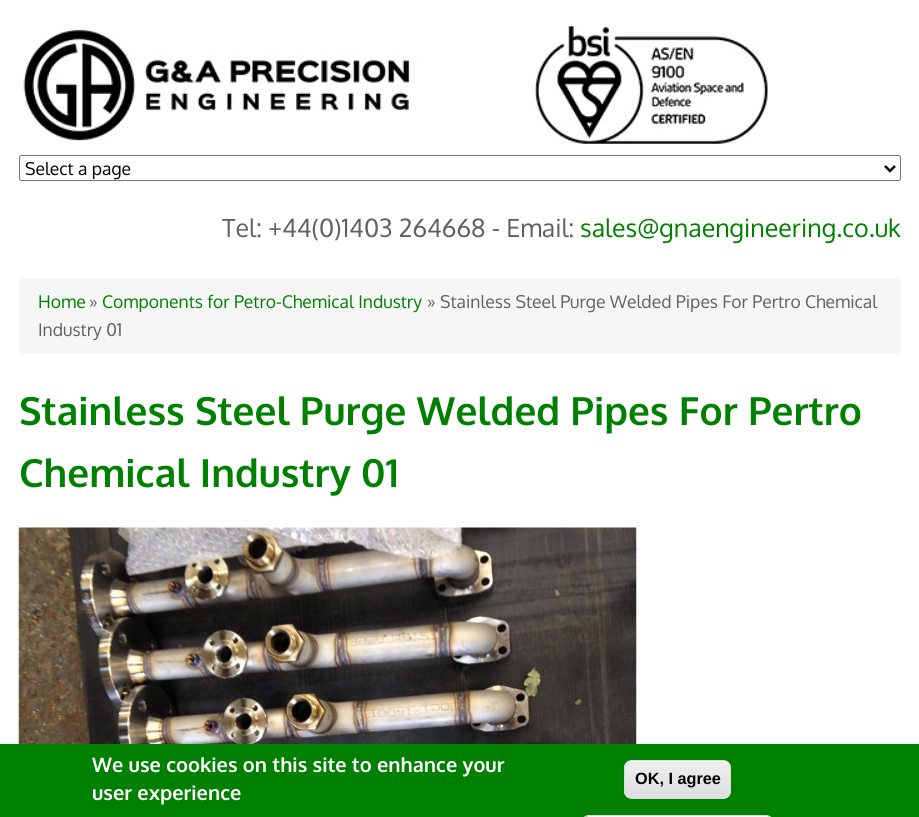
#include <cairo.h>
#include <math.h>
#include <stddef.h>


static void round_rect(cairo_t *cr, double x, double y, double w, double h, double r) {
    cairo_new_sub_path(cr);
    cairo_arc(cr, x + w - r, y + h - r, r, 0, M_PI / 2);
    cairo_arc(cr, x + r, y + h - r, r, M_PI / 2, M_PI);
    cairo_arc(cr, x + r, y + r, r, M_PI, 1.5 * M_PI);
    cairo_arc(cr, x + w - r, y + r, r, 1.5 * M_PI, 2 * M_PI);
    cairo_close_path(cr);
}

static void picture(cairo_t *cr, const char *path, double x, double y, double w, double h) {
    cairo_surface_t *image = cairo_image_surface_create_from_png(path);
    cairo_save(cr);
    cairo_set_source_surface(cr, image, x, y);
    cairo_rectangle(cr, x, y, w, h);
    cairo_fill(cr);
    cairo_restore(cr);
    cairo_surface_destroy(image);
}

int main(void) {
    cairo_surface_t *surface = cairo_image_surface_create(CAIRO_FORMAT_RGB24, 919, 817);
    cairo_t *cr = cairo_create(surface);
    cairo_font_options_t *options = cairo_font_options_create();
    cairo_font_options_set_hint_metrics(options, CAIRO_HINT_METRICS_OFF);
    cairo_font_options_set_hint_style(options, CAIRO_HINT_STYLE_NONE);
    cairo_set_font_options(cr, options);
    cairo_set_miter_limit(cr, 4);
    cairo_pattern_t *gradient;
    cairo_set_source_rgb(cr, 1, 1, 1);
    cairo_paint(cr);
    picture(cr, "img1.png", 23, 26, 745, 118);
    round_rect(cr, 19.5, 155.5, 881, 25, 2);
    cairo_set_source_rgb(cr, 0.463, 0.463, 0.463);
    cairo_set_line_width(cr, 1);
    cairo_stroke(cr);
    cairo_new_path(cr);
    cairo_move_to(cr, 885, 166);
    cairo_line_to(cr, 890, 171);
    cairo_line_to(cr, 895, 166);
    cairo_set_source_rgb(cr, 0, 0, 0);
    cairo_set_line_width(cr, 2.5);
    cairo_stroke(cr);
    cairo_select_font_face(cr, "Oxygen", CAIRO_FONT_SLANT_NORMAL, CAIRO_FONT_WEIGHT_NORMAL);
    cairo_set_font_size(cr, 17.5);
    cairo_move_to(cr, 25, 175);
    cairo_show_text(cr, "Select a page");
    cairo_set_font_size(cr, 25);
    cairo_set_source_rgb(cr, 0.376, 0.376, 0.376);
    cairo_move_to(cr, 222, 237);
    cairo_show_text(cr, "Tel: +44(0)1403 264668 - Email:");
    cairo_set_source_rgb(cr, 0, 0.502, 0);
    cairo_move_to(cr, 580, 237);
    cairo_show_text(cr, "sales@gnaengineering.co.uk");
    cairo_set_source_rgb(cr, 0.961, 0.961, 0.961);
    round_rect(cr, 19, 278, 882, 76, 5);
    cairo_fill(cr);
    cairo_set_font_size(cr, 17.5);
    cairo_set_source_rgb(cr, 0, 0.502, 0);
    cairo_move_to(cr, 38, 308);
    cairo_show_text(cr, "Home");
    cairo_set_source_rgb(cr, 0.376, 0.376, 0.376);
    cairo_move_to(cr, 89, 308);
    cairo_show_text(cr, "»");
    cairo_set_source_rgb(cr, 0, 0.502, 0);
    cairo_move_to(cr, 102, 308);
    cairo_show_text(cr, "Components for Petro-Chemical Industry");
    cairo_set_source_rgb(cr, 0.376, 0.376, 0.376);
    cairo_move_to(cr, 427, 308);
    cairo_show_text(cr, "» Stainless Steel Purge Welded Pipes For Pertro Chemical");
    cairo_move_to(cr, 38, 336);
    cairo_show_text(cr, "Industry 01");
    cairo_select_font_face(cr, "Oxygen", CAIRO_FONT_SLANT_NORMAL, CAIRO_FONT_WEIGHT_BOLD);
    cairo_set_font_size(cr, 38.75);
    cairo_set_source_rgb(cr, 0, 0.502, 0);
    cairo_move_to(cr, 19, 425);
    cairo_show_text(cr, "Stainless Steel Purge Welded Pipes For Pertro");
    cairo_move_to(cr, 19, 487);
    cairo_show_text(cr, "Chemical Industry 01");
    picture(cr, "img2.png", 18, 527, 619, 217);
    cairo_rectangle(cr, 0, 744, 919, 73);
    cairo_fill(cr);
    cairo_set_font_size(cr, 20);
    cairo_set_source_rgb(cr, 1, 1, 1);
    cairo_move_to(cr, 92, 772);
    cairo_show_text(cr, "We use cookies on this site to enhance your");
    cairo_move_to(cr, 92, 800);
    cairo_show_text(cr, "user experience");
    cairo_save(cr);
    round_rect(cr, 624, 760, 107, 39, 8);
    cairo_clip(cr);
    gradient = cairo_pattern_create_linear(625, 761, 625, 798);
    cairo_pattern_add_color_stop_rgba(gradient, 0.05, 0.929, 0.929, 0.929, 1);
    cairo_pattern_add_color_stop_rgba(gradient, 1, 0.875, 0.875, 0.875, 1);
    cairo_set_source(cr, gradient);
    cairo_pattern_destroy(gradient);
    cairo_rectangle(cr, 624, 761, 107, 37);
    cairo_fill(cr);
    cairo_restore(cr);
    cairo_new_path(cr);
    cairo_move_to(cr, 631, 762);
    cairo_line_to(cr, 724, 762);
    cairo_curve_to(cr, 727, 762, 730, 765, 730, 769);
    cairo_curve_to(cr, 730, 757, 718, 761, 708, 761);
    cairo_line_to(cr, 646, 761);
    cairo_curve_to(cr, 637, 761, 625, 757, 625, 769);
    cairo_curve_to(cr, 625, 765, 628, 762, 631, 762);
    cairo_close_path(cr);
    cairo_fill(cr);
    round_rect(cr, 624.5, 760.5, 106, 38, 7.5);
    cairo_set_source_rgb(cr, 0.863, 0.863, 0.863);
    cairo_set_line_width(cr, 1);
    cairo_stroke(cr);
    cairo_select_font_face(cr, "Liberation Sans", CAIRO_FONT_SLANT_NORMAL, CAIRO_FONT_WEIGHT_BOLD);
    cairo_set_font_size(cr, 16.25);
    cairo_set_source_rgb(cr, 0, 0, 0);
    cairo_move_to(cr, 635, 784);
    cairo_show_text(cr, "OK, I agree");
    cairo_set_source_rgb(cr, 1, 1, 1);
    cairo_new_path(cr);
    cairo_move_to(cr, 589, 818);
    cairo_line_to(cr, 766, 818);
    cairo_curve_to(cr, 770, 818, 772, 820, 772, 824);
    cairo_line_to(cr, 772, 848);
    cairo_curve_to(cr, 772, 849, 772, 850, 771, 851);
    cairo_curve_to(cr, 772, 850, 773, 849, 773, 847);
    cairo_line_to(cr, 773, 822);
    cairo_curve_to(cr, 773, 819, 770, 816, 767, 816);
    cairo_line_to(cr, 589, 816);
    cairo_curve_to(cr, 586, 816, 584, 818, 583, 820);
    cairo_curve_to(cr, 585, 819, 587, 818, 589, 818);
    cairo_close_path(cr);
    cairo_fill(cr);
    round_rect(cr, 581.5, 815.5, 192, 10, 7.5);
    cairo_set_source_rgb(cr, 0.863, 0.863, 0.863);
    cairo_stroke(cr);
    cairo_surface_write_to_png(surface, "page.png");
    cairo_font_options_destroy(options);
    cairo_destroy(cr);
    cairo_surface_destroy(surface);
    return 0;
}
